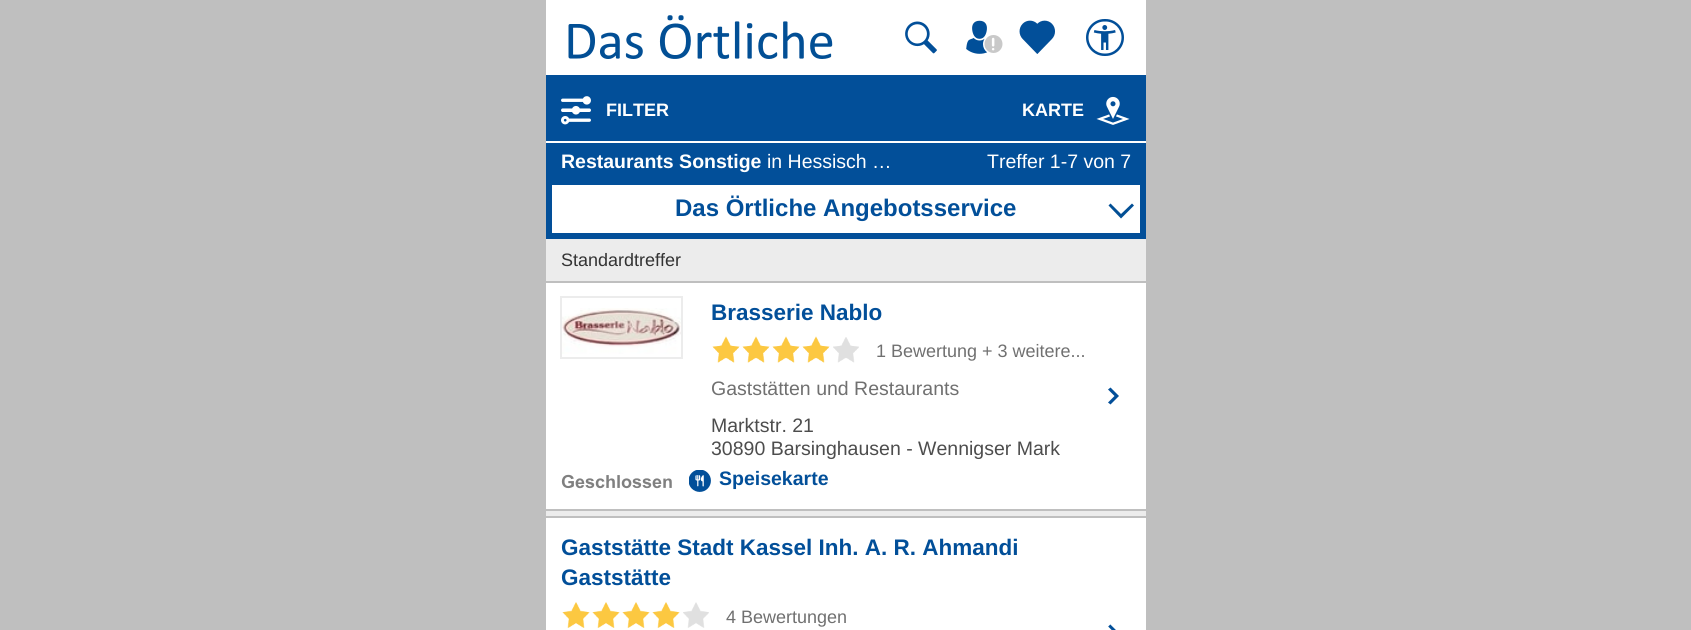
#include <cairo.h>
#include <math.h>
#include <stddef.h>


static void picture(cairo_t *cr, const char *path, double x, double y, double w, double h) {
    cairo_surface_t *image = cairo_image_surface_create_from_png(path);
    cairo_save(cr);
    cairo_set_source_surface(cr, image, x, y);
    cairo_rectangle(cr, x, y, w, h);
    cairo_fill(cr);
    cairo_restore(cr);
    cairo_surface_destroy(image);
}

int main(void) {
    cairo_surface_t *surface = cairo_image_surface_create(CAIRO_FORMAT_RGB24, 1691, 630);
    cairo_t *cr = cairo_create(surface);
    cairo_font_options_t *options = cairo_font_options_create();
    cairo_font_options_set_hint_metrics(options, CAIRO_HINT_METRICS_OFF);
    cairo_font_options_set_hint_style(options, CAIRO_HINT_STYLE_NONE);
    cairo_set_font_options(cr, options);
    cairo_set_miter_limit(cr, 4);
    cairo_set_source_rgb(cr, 0.749, 0.749, 0.749);
    cairo_paint(cr);
    cairo_set_source_rgb(cr, 1, 1, 1);
    cairo_rectangle(cr, 546, 0, 600, 75);
    cairo_fill(cr);
    picture(cr, "img1.png", 568, 15, 265, 44);
    picture(cr, "img2.png", 905, 21, 32, 33);
    picture(cr, "img3.png", 966, 20, 37, 34);
    picture(cr, "img4.png", 1019, 20, 36, 34);
    picture(cr, "img5.png", 1086, 19, 38, 37);
    cairo_set_source_rgb(cr, 0.008, 0.31, 0.6);
    cairo_rectangle(cr, 546, 75, 600, 104);
    cairo_fill(cr);
    picture(cr, "img6.png", 561, 96, 30, 29);
    cairo_select_font_face(cr, "Liberation Sans", CAIRO_FONT_SLANT_NORMAL, CAIRO_FONT_WEIGHT_BOLD);
    cairo_set_font_size(cr, 18);
    cairo_set_source_rgb(cr, 1, 1, 1);
    cairo_move_to(cr, 606, 116);
    cairo_show_text(cr, "FILTER");
    cairo_move_to(cr, 1022, 116);
    cairo_show_text(cr, "KARTE");
    picture(cr, "img7.png", 1096, 96, 34, 29);
    cairo_rectangle(cr, 546, 141, 600, 2);
    cairo_fill(cr);
    cairo_set_font_size(cr, 19.5);
    cairo_move_to(cr, 561, 168);
    cairo_show_text(cr, "Restaurants Sonstige");
    cairo_select_font_face(cr, "Liberation Sans", CAIRO_FONT_SLANT_NORMAL, CAIRO_FONT_WEIGHT_NORMAL);
    cairo_move_to(cr, 767, 168);
    cairo_show_text(cr, "in Hessisch …");
    cairo_move_to(cr, 987, 168);
    cairo_show_text(cr, "Treffer 1-7 von 7");
    cairo_set_source_rgb(cr, 0.922, 0.922, 0.922);
    cairo_rectangle(cr, 546, 239, 600, 277);
    cairo_fill(cr);
    cairo_set_source_rgb(cr, 1, 1, 1);
    cairo_rectangle(cr, 549, 182, 594, 54);
    cairo_fill_preserve(cr);
    cairo_set_source_rgb(cr, 0.008, 0.31, 0.6);
    cairo_set_line_width(cr, 6);
    cairo_stroke(cr);
    cairo_set_source_rgb(cr, 0.008, 0.31, 0.584);
    cairo_new_path(cr);
    cairo_move_to(cr, 1110.5, 203.5);
    cairo_line_to(cr, 1121, 214);
    cairo_line_to(cr, 1132, 203.5);
    cairo_line_to(cr, 1134, 205.5);
    cairo_line_to(cr, 1121, 218.5);
    cairo_line_to(cr, 1108.5, 205.5);
    cairo_close_path(cr);
    cairo_fill(cr);
    cairo_select_font_face(cr, "Liberation Sans", CAIRO_FONT_SLANT_NORMAL, CAIRO_FONT_WEIGHT_BOLD);
    cairo_set_font_size(cr, 24);
    cairo_set_source_rgb(cr, 0.008, 0.31, 0.6);
    cairo_move_to(cr, 675, 216);
    cairo_show_text(cr, "Das Örtliche Angebotsservice");
    cairo_select_font_face(cr, "Liberation Sans", CAIRO_FONT_SLANT_NORMAL, CAIRO_FONT_WEIGHT_NORMAL);
    cairo_set_font_size(cr, 18);
    cairo_set_source_rgb(cr, 0.2, 0.2, 0.2);
    cairo_move_to(cr, 561, 266);
    cairo_show_text(cr, "Standardtreffer");
    cairo_set_source_rgb(cr, 1, 1, 1);
    cairo_rectangle(cr, 546, 283, 600, 226);
    cairo_fill(cr);
    cairo_set_source_rgb(cr, 0.008, 0.31, 0.6);
    cairo_new_path(cr);
    cairo_move_to(cr, 1110.5, 404.5);
    cairo_line_to(cr, 1108, 402.5);
    cairo_line_to(cr, 1114.5, 396);
    cairo_line_to(cr, 1108, 389.5);
    cairo_line_to(cr, 1110.5, 387.5);
    cairo_line_to(cr, 1119, 396);
    cairo_close_path(cr);
    cairo_fill(cr);
    cairo_set_source_rgb(cr, 0.749, 0.749, 0.749);
    cairo_rectangle(cr, 546, 281, 600, 2);
    cairo_fill(cr);
    cairo_rectangle(cr, 546, 509, 600, 2);
    cairo_fill(cr);
    picture(cr, "img8.png", 562, 308, 119, 46);
    cairo_rectangle(cr, 561, 297, 121, 61);
    cairo_set_source_rgb(cr, 0.922, 0.922, 0.922);
    cairo_set_line_width(cr, 2);
    cairo_stroke(cr);
    cairo_select_font_face(cr, "Liberation Sans", CAIRO_FONT_SLANT_NORMAL, CAIRO_FONT_WEIGHT_BOLD);
    cairo_set_font_size(cr, 22.5);
    cairo_set_source_rgb(cr, 0.008, 0.31, 0.6);
    cairo_move_to(cr, 711, 320);
    cairo_show_text(cr, "Brasserie Nablo");
    picture(cr, "img9.png", 712, 336, 28, 27);
    picture(cr, "img9.png", 742, 336, 28, 27);
    picture(cr, "img9.png", 772, 336, 28, 27);
    picture(cr, "img9.png", 802, 336, 28, 27);
    picture(cr, "img10.png", 833, 337, 26, 26);
    cairo_select_font_face(cr, "Liberation Sans", CAIRO_FONT_SLANT_NORMAL, CAIRO_FONT_WEIGHT_NORMAL);
    cairo_set_font_size(cr, 18);
    cairo_set_source_rgb(cr, 0.439, 0.439, 0.439);
    cairo_move_to(cr, 876, 357);
    cairo_show_text(cr, "1 Bewertung + 3 weitere...");
    cairo_set_font_size(cr, 19.5);
    cairo_move_to(cr, 711, 395);
    cairo_show_text(cr, "Gaststätten und Restaurants");
    cairo_set_source_rgb(cr, 0.302, 0.302, 0.302);
    cairo_move_to(cr, 711, 432);
    cairo_show_text(cr, "Marktstr. 21");
    cairo_move_to(cr, 711, 455);
    cairo_show_text(cr, "30890 Barsinghausen - Wennigser Mark");
    picture(cr, "img11.png", 561, 474, 111, 15);
    picture(cr, "img12.png", 689, 470, 22, 22);
    cairo_select_font_face(cr, "Liberation Sans", CAIRO_FONT_SLANT_NORMAL, CAIRO_FONT_WEIGHT_BOLD);
    cairo_set_source_rgb(cr, 0.008, 0.31, 0.6);
    cairo_move_to(cr, 719, 485);
    cairo_show_text(cr, "Speisekarte");
    cairo_set_source_rgb(cr, 1, 1, 1);
    cairo_rectangle(cr, 546, 518, 600, 112);
    cairo_fill(cr);
    picture(cr, "img13.png", 1108, 624, 8, 6);
    cairo_set_font_size(cr, 22.5);
    cairo_set_source_rgb(cr, 0.008, 0.31, 0.6);
    cairo_move_to(cr, 561, 555);
    cairo_show_text(cr, "Gaststätte Stadt Kassel Inh. A. R. Ahmandi");
    cairo_move_to(cr, 561, 585);
    cairo_show_text(cr, "Gaststätte");
    picture(cr, "img14.png", 562, 602, 28, 26);
    picture(cr, "img14.png", 592, 602, 28, 26);
    picture(cr, "img14.png", 622, 602, 28, 26);
    picture(cr, "img14.png", 652, 602, 28, 26);
    picture(cr, "img15.png", 683, 602, 26, 26);
    cairo_select_font_face(cr, "Liberation Sans", CAIRO_FONT_SLANT_NORMAL, CAIRO_FONT_WEIGHT_NORMAL);
    cairo_set_font_size(cr, 18);
    cairo_set_source_rgb(cr, 0.439, 0.439, 0.439);
    cairo_move_to(cr, 726, 623);
    cairo_show_text(cr, "4 Bewertungen");
    cairo_surface_write_to_png(surface, "page.png");
    cairo_font_options_destroy(options);
    cairo_destroy(cr);
    cairo_surface_destroy(surface);
    return 0;
}
